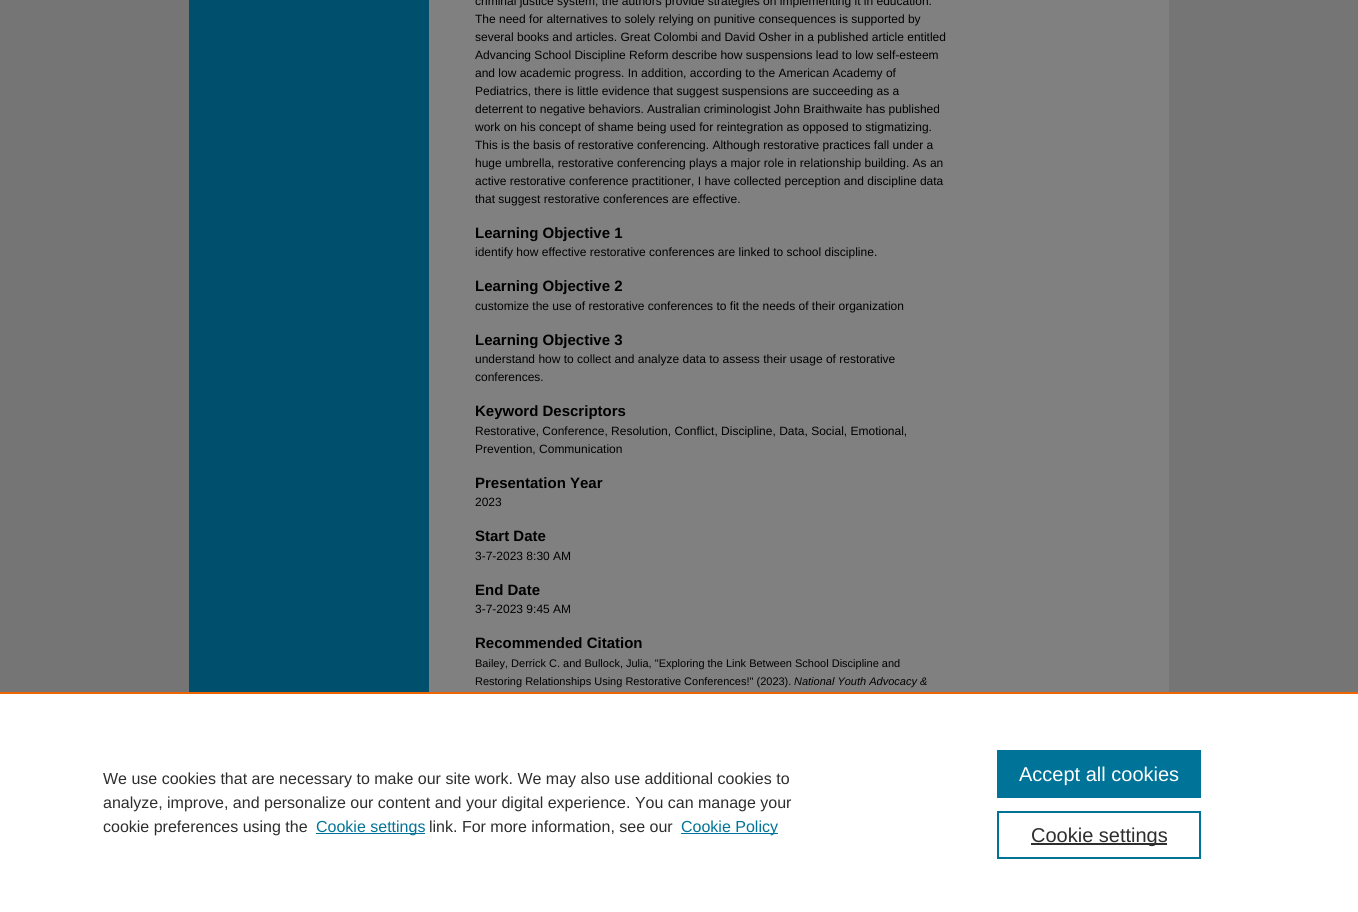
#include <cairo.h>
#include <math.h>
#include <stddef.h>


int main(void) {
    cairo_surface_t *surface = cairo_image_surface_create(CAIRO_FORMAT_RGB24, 1358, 912);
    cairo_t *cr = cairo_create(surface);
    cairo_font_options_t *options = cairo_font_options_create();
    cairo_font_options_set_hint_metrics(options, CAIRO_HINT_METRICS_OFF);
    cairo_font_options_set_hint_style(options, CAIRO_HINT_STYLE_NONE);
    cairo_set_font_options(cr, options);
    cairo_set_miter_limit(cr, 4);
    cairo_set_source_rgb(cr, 0.459, 0.459, 0.459);
    cairo_paint(cr);
    cairo_set_source_rgb(cr, 0, 0.31, 0.427);
    cairo_rectangle(cr, 189, 0, 240, 692);
    cairo_fill(cr);
    cairo_set_source_rgb(cr, 0.502, 0.502, 0.502);
    cairo_rectangle(cr, 429, 0, 740, 692);
    cairo_fill(cr);
    cairo_select_font_face(cr, "Liberation Sans", CAIRO_FONT_SLANT_NORMAL, CAIRO_FONT_WEIGHT_NORMAL);
    cairo_set_font_size(cr, 12);
    cairo_set_source_rgb(cr, 0, 0, 0);
    cairo_move_to(cr, 475, 5);
    cairo_show_text(cr, "criminal justice system, the authors provide strategies on implementing it in education.");
    cairo_move_to(cr, 475, 23);
    cairo_show_text(cr, "The need for alternatives to solely relying on punitive consequences is supported by");
    cairo_move_to(cr, 475, 41);
    cairo_show_text(cr, "several books and articles. Great Colombi and David Osher in a published article entitled");
    cairo_move_to(cr, 475, 59);
    cairo_show_text(cr, "Advancing School Discipline Reform describe how suspensions lead to low self-esteem");
    cairo_move_to(cr, 475, 77);
    cairo_show_text(cr, "and low academic progress. In addition, according to the American Academy of");
    cairo_move_to(cr, 475, 95);
    cairo_show_text(cr, "Pediatrics, there is little evidence that suggest suspensions are succeeding as a");
    cairo_move_to(cr, 475, 113);
    cairo_show_text(cr, "deterrent to negative behaviors. Australian criminologist John Braithwaite has published");
    cairo_move_to(cr, 475, 131);
    cairo_show_text(cr, "work on his concept of shame being used for reintegration as opposed to stigmatizing.");
    cairo_move_to(cr, 475, 149);
    cairo_show_text(cr, "This is the basis of restorative conferencing. Although restorative practices fall under a");
    cairo_move_to(cr, 475, 167);
    cairo_show_text(cr, "huge umbrella, restorative conferencing plays a major role in relationship building. As an");
    cairo_move_to(cr, 475, 185);
    cairo_show_text(cr, "active restorative conference practitioner, I have collected perception and discipline data");
    cairo_move_to(cr, 475, 203);
    cairo_show_text(cr, "that suggest restorative conferences are effective.");
    cairo_select_font_face(cr, "Liberation Sans", CAIRO_FONT_SLANT_NORMAL, CAIRO_FONT_WEIGHT_BOLD);
    cairo_set_font_size(cr, 15);
    cairo_move_to(cr, 475, 238);
    cairo_show_text(cr, "Learning Objective 1");
    cairo_select_font_face(cr, "Liberation Sans", CAIRO_FONT_SLANT_NORMAL, CAIRO_FONT_WEIGHT_NORMAL);
    cairo_set_font_size(cr, 12);
    cairo_move_to(cr, 475, 256);
    cairo_show_text(cr, "identify how effective restorative conferences are linked to school discipline.");
    cairo_select_font_face(cr, "Liberation Sans", CAIRO_FONT_SLANT_NORMAL, CAIRO_FONT_WEIGHT_BOLD);
    cairo_set_font_size(cr, 15);
    cairo_move_to(cr, 475, 291);
    cairo_show_text(cr, "Learning Objective 2");
    cairo_select_font_face(cr, "Liberation Sans", CAIRO_FONT_SLANT_NORMAL, CAIRO_FONT_WEIGHT_NORMAL);
    cairo_set_font_size(cr, 12);
    cairo_move_to(cr, 475, 310);
    cairo_show_text(cr, "customize the use of restorative conferences to fit the needs of their organization");
    cairo_select_font_face(cr, "Liberation Sans", CAIRO_FONT_SLANT_NORMAL, CAIRO_FONT_WEIGHT_BOLD);
    cairo_set_font_size(cr, 15);
    cairo_move_to(cr, 475, 345);
    cairo_show_text(cr, "Learning Objective 3");
    cairo_select_font_face(cr, "Liberation Sans", CAIRO_FONT_SLANT_NORMAL, CAIRO_FONT_WEIGHT_NORMAL);
    cairo_set_font_size(cr, 12);
    cairo_move_to(cr, 475, 363);
    cairo_show_text(cr, "understand how to collect and analyze data to assess their usage of restorative");
    cairo_move_to(cr, 475, 381);
    cairo_show_text(cr, "conferences.");
    cairo_select_font_face(cr, "Liberation Sans", CAIRO_FONT_SLANT_NORMAL, CAIRO_FONT_WEIGHT_BOLD);
    cairo_set_font_size(cr, 15);
    cairo_move_to(cr, 475, 416);
    cairo_show_text(cr, "Keyword Descriptors");
    cairo_select_font_face(cr, "Liberation Sans", CAIRO_FONT_SLANT_NORMAL, CAIRO_FONT_WEIGHT_NORMAL);
    cairo_set_font_size(cr, 12);
    cairo_move_to(cr, 475, 435);
    cairo_show_text(cr, "Restorative, Conference, Resolution, Conflict, Discipline, Data, Social, Emotional,");
    cairo_move_to(cr, 475, 453);
    cairo_show_text(cr, "Prevention, Communication");
    cairo_select_font_face(cr, "Liberation Sans", CAIRO_FONT_SLANT_NORMAL, CAIRO_FONT_WEIGHT_BOLD);
    cairo_set_font_size(cr, 15);
    cairo_move_to(cr, 475, 488);
    cairo_show_text(cr, "Presentation Year");
    cairo_select_font_face(cr, "Liberation Sans", CAIRO_FONT_SLANT_NORMAL, CAIRO_FONT_WEIGHT_NORMAL);
    cairo_set_font_size(cr, 12);
    cairo_move_to(cr, 475, 506);
    cairo_show_text(cr, "2023");
    cairo_select_font_face(cr, "Liberation Sans", CAIRO_FONT_SLANT_NORMAL, CAIRO_FONT_WEIGHT_BOLD);
    cairo_set_font_size(cr, 15);
    cairo_move_to(cr, 475, 541);
    cairo_show_text(cr, "Start Date");
    cairo_select_font_face(cr, "Liberation Sans", CAIRO_FONT_SLANT_NORMAL, CAIRO_FONT_WEIGHT_NORMAL);
    cairo_set_font_size(cr, 12);
    cairo_move_to(cr, 475, 560);
    cairo_show_text(cr, "3-7-2023 8:30 AM");
    cairo_select_font_face(cr, "Liberation Sans", CAIRO_FONT_SLANT_NORMAL, CAIRO_FONT_WEIGHT_BOLD);
    cairo_set_font_size(cr, 15);
    cairo_move_to(cr, 475, 595);
    cairo_show_text(cr, "End Date");
    cairo_select_font_face(cr, "Liberation Sans", CAIRO_FONT_SLANT_NORMAL, CAIRO_FONT_WEIGHT_NORMAL);
    cairo_set_font_size(cr, 12);
    cairo_move_to(cr, 475, 613);
    cairo_show_text(cr, "3-7-2023 9:45 AM");
    cairo_select_font_face(cr, "Liberation Sans", CAIRO_FONT_SLANT_NORMAL, CAIRO_FONT_WEIGHT_BOLD);
    cairo_set_font_size(cr, 15);
    cairo_move_to(cr, 475, 648);
    cairo_show_text(cr, "Recommended Citation");
    cairo_select_font_face(cr, "Liberation Sans", CAIRO_FONT_SLANT_NORMAL, CAIRO_FONT_WEIGHT_NORMAL);
    cairo_set_font_size(cr, 11);
    cairo_move_to(cr, 475, 667);
    cairo_show_text(cr, "Bailey, Derrick C. and Bullock, Julia, \"Exploring the Link Between School Discipline and");
    cairo_move_to(cr, 475, 685);
    cairo_show_text(cr, "Restoring Relationships Using Restorative Conferences!\" (2023).");
    cairo_select_font_face(cr, "Liberation Sans", CAIRO_FONT_SLANT_ITALIC, CAIRO_FONT_WEIGHT_NORMAL);
    cairo_move_to(cr, 794, 685);
    cairo_show_text(cr, "National Youth Advocacy &");
    cairo_set_source_rgb(cr, 1, 1, 1);
    cairo_rectangle(cr, 0, 694, 1358, 218);
    cairo_fill(cr);
    cairo_set_source_rgb(cr, 0.922, 0.396, 0);
    cairo_rectangle(cr, 0, 692, 1358, 2);
    cairo_fill(cr);
    cairo_select_font_face(cr, "Liberation Sans", CAIRO_FONT_SLANT_NORMAL, CAIRO_FONT_WEIGHT_NORMAL);
    cairo_set_font_size(cr, 16);
    cairo_set_source_rgb(cr, 0.18, 0.18, 0.18);
    cairo_move_to(cr, 103, 784);
    cairo_show_text(cr, "We use cookies that are necessary to make our site work. We may also use additional cookies to");
    cairo_move_to(cr, 103, 808);
    cairo_show_text(cr, "analyze, improve, and personalize our content and your digital experience. You can manage your");
    cairo_move_to(cr, 103, 832);
    cairo_show_text(cr, "cookie preferences using the");
    cairo_set_source_rgb(cr, 0, 0.451, 0.596);
    cairo_rectangle(cr, 316, 833, 109, 1);
    cairo_fill(cr);
    cairo_move_to(cr, 316, 832);
    cairo_show_text(cr, "Cookie settings");
    cairo_set_source_rgb(cr, 0.18, 0.18, 0.18);
    cairo_move_to(cr, 429, 832);
    cairo_show_text(cr, "link. For more information, see our");
    cairo_set_source_rgb(cr, 0, 0.451, 0.596);
    cairo_rectangle(cr, 681, 833, 97, 1);
    cairo_fill(cr);
    cairo_move_to(cr, 681, 832);
    cairo_show_text(cr, "Cookie Policy");
    cairo_rectangle(cr, 997, 750, 204, 48);
    cairo_fill(cr);
    cairo_set_font_size(cr, 20);
    cairo_set_source_rgb(cr, 1, 1, 1);
    cairo_move_to(cr, 1019, 781);
    cairo_show_text(cr, "Accept all cookies");
    cairo_rectangle(cr, 998, 812, 202, 46);
    cairo_set_source_rgb(cr, 0, 0.451, 0.596);
    cairo_stroke(cr);
    cairo_set_source_rgb(cr, 0.18, 0.18, 0.18);
    cairo_rectangle(cr, 1031, 843, 136, 2);
    cairo_fill(cr);
    cairo_move_to(cr, 1031, 842);
    cairo_show_text(cr, "Cookie settings");
    cairo_surface_write_to_png(surface, "page.png");
    cairo_font_options_destroy(options);
    cairo_destroy(cr);
    cairo_surface_destroy(surface);
    return 0;
}
